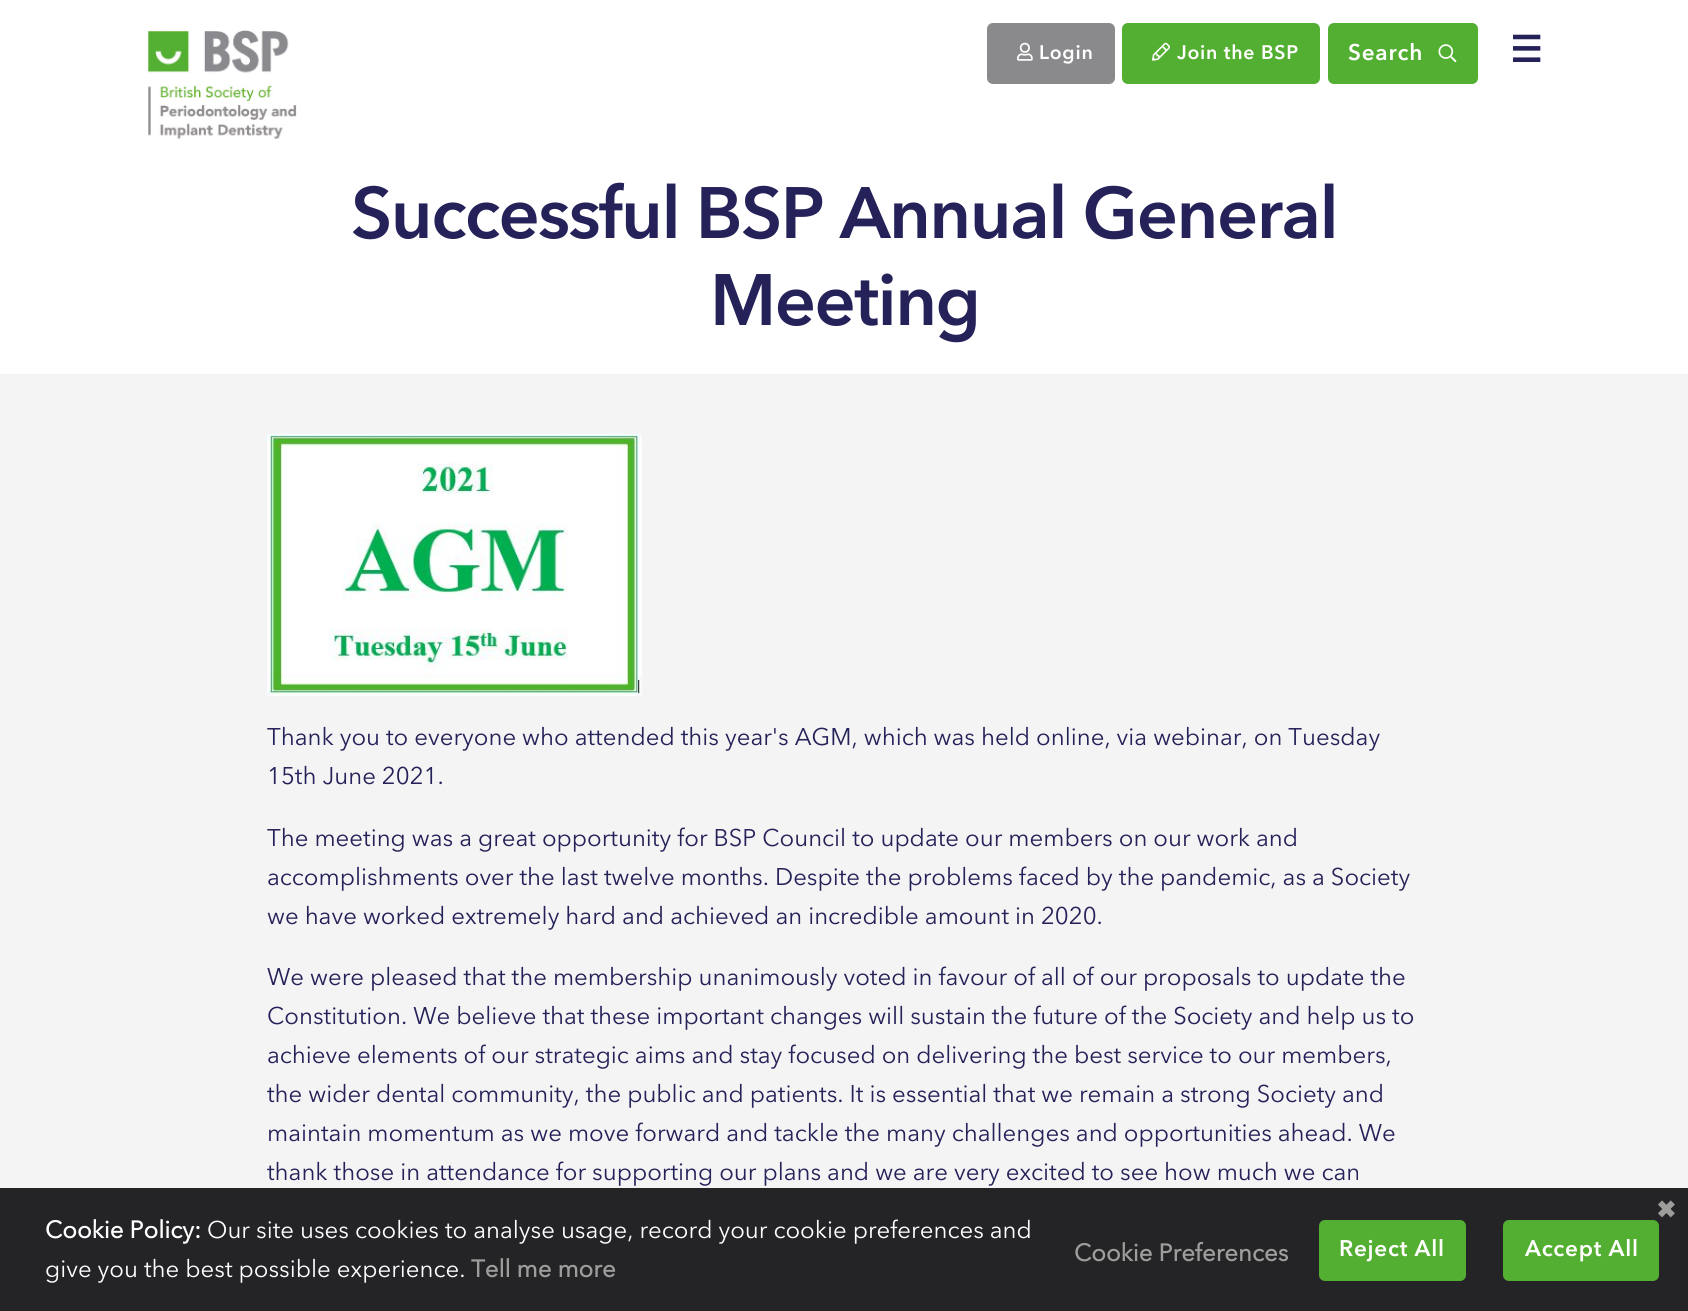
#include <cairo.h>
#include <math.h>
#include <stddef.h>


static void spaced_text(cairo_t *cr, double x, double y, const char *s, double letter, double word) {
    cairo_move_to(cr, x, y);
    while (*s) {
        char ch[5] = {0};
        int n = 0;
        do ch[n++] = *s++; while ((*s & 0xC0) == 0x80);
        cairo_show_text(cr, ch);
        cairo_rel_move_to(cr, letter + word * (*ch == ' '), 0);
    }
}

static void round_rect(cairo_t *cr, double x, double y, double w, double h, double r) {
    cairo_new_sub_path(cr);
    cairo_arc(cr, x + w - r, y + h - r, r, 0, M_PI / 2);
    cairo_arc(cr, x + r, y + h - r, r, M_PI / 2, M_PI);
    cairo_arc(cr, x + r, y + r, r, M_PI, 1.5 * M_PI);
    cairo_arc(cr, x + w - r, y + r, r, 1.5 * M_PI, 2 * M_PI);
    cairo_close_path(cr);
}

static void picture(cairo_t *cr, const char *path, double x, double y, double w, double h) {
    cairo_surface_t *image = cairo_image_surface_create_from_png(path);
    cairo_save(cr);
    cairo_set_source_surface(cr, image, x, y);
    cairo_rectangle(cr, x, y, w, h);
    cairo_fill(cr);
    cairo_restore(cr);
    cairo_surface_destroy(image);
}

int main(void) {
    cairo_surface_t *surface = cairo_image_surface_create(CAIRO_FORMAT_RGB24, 1688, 1311);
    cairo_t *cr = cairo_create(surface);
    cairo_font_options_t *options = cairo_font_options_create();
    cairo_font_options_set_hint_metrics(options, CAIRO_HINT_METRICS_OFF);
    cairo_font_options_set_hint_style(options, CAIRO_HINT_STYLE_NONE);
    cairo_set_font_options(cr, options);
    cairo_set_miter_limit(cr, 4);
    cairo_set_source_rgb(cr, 1, 1, 1);
    cairo_paint(cr);
    picture(cr, "img1.png", 147, 30, 150, 109);
    cairo_set_source_rgb(cr, 0.541, 0.541, 0.553);
    round_rect(cr, 987, 23, 128, 61, 6);
    cairo_fill(cr);
    picture(cr, "img2.png", 1017, 42, 16, 19);
    cairo_select_font_face(cr, "Avenir Next", CAIRO_FONT_SLANT_NORMAL, CAIRO_FONT_WEIGHT_BOLD);
    cairo_set_font_size(cr, 19.5);
    cairo_set_source_rgb(cr, 1, 1, 1);
    spaced_text(cr, 1039, 59, "Login", 0.75, 0);
    cairo_set_source_rgb(cr, 0.325, 0.686, 0.192);
    round_rect(cr, 1122, 23, 198, 61, 6);
    cairo_fill(cr);
    picture(cr, "img3.png", 1152, 42, 18, 19);
    cairo_set_source_rgb(cr, 1, 1, 1);
    spaced_text(cr, 1177, 59, "Join the BSP", 0.75, 0);
    cairo_set_source_rgb(cr, 0.325, 0.686, 0.192);
    round_rect(cr, 1328, 23, 150, 61, 6);
    cairo_fill(cr);
    cairo_set_font_size(cr, 22.5);
    cairo_set_source_rgb(cr, 1, 1, 1);
    spaced_text(cr, 1348, 60, "Search", 0.75, 0);
    picture(cr, "img4.png", 1438, 44, 19, 19);
    cairo_select_font_face(cr, "DejaVu Sans", CAIRO_FONT_SLANT_NORMAL, CAIRO_FONT_WEIGHT_BOLD);
    cairo_set_font_size(cr, 36);
    cairo_set_source_rgb(cr, 0.145, 0.129, 0.349);
    cairo_move_to(cr, 1510, 62);
    cairo_show_text(cr, "☰");
    cairo_set_source_rgb(cr, 0.957, 0.957, 0.957);
    cairo_rectangle(cr, 0, 374, 1688, 814);
    cairo_fill(cr);
    cairo_select_font_face(cr, "Avenir Next", CAIRO_FONT_SLANT_NORMAL, CAIRO_FONT_WEIGHT_BOLD);
    cairo_set_font_size(cr, 72);
    cairo_set_source_rgb(cr, 0.145, 0.129, 0.349);
    spaced_text(cr, 351, 238, "Successful BSP Annual General", -1.5, 0);
    spaced_text(cr, 710, 325, "Meeting", -1.5, 0);
    picture(cr, "img5.png", 267, 434, 375, 262);
    cairo_select_font_face(cr, "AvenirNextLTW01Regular", CAIRO_FONT_SLANT_NORMAL, CAIRO_FONT_WEIGHT_NORMAL);
    cairo_set_font_size(cr, 24);
    cairo_move_to(cr, 267, 745);
    cairo_show_text(cr, "Thank you to everyone who attended this year's AGM, which was held online, via webinar, on Tuesday");
    cairo_move_to(cr, 267, 784);
    cairo_show_text(cr, "15th June 2021.");
    cairo_move_to(cr, 267, 846);
    cairo_show_text(cr, "The meeting was a great opportunity for BSP Council to update our members on our work and");
    cairo_move_to(cr, 267, 885);
    cairo_show_text(cr, "accomplishments over the last twelve months. Despite the problems faced by the pandemic, as a Society");
    cairo_move_to(cr, 267, 924);
    cairo_show_text(cr, "we have worked extremely hard and achieved an incredible amount in 2020.");
    cairo_move_to(cr, 267, 985);
    cairo_show_text(cr, "We were pleased that the membership unanimously voted in favour of all of our proposals to update the");
    cairo_move_to(cr, 267, 1024);
    cairo_show_text(cr, "Constitution. We believe that these important changes will sustain the future of the Society and help us to");
    cairo_move_to(cr, 267, 1063);
    cairo_show_text(cr, "achieve elements of our strategic aims and stay focused on delivering the best service to our members,");
    cairo_move_to(cr, 267, 1102);
    cairo_show_text(cr, "the wider dental community, the public and patients. It is essential that we remain a strong Society and");
    cairo_move_to(cr, 267, 1141);
    cairo_show_text(cr, "maintain momentum as we move forward and tackle the many challenges and opportunities ahead. We");
    cairo_move_to(cr, 267, 1180);
    cairo_show_text(cr, "thank those in attendance for supporting our plans and we are very excited to see how much we can");
    cairo_set_source_rgb(cr, 0.141, 0.141, 0.153);
    cairo_rectangle(cr, 0, 1188, 1688, 123);
    cairo_fill(cr);
    cairo_select_font_face(cr, "DejaVu Sans", CAIRO_FONT_SLANT_NORMAL, CAIRO_FONT_WEIGHT_BOLD);
    cairo_set_source_rgb(cr, 0.616, 0.616, 0.612);
    cairo_move_to(cr, 1656, 1218);
    cairo_show_text(cr, "✖");
    cairo_select_font_face(cr, "AvenirNextLTW01Regular", CAIRO_FONT_SLANT_NORMAL, CAIRO_FONT_WEIGHT_BOLD);
    cairo_set_source_rgb(cr, 1, 1, 1);
    cairo_move_to(cr, 45, 1238);
    cairo_show_text(cr, "Cookie Policy:");
    cairo_select_font_face(cr, "AvenirNextLTW01Regular", CAIRO_FONT_SLANT_NORMAL, CAIRO_FONT_WEIGHT_NORMAL);
    cairo_move_to(cr, 207, 1238);
    cairo_show_text(cr, "Our site uses cookies to analyse usage, record your cookie preferences and");
    cairo_move_to(cr, 45, 1277);
    cairo_show_text(cr, "give you the best possible experience.");
    cairo_select_font_face(cr, "AvenirNextLTW01Regular", CAIRO_FONT_SLANT_NORMAL, CAIRO_FONT_WEIGHT_BOLD);
    cairo_set_source_rgb(cr, 0.616, 0.616, 0.612);
    cairo_move_to(cr, 471, 1277);
    cairo_show_text(cr, "Tell me more");
    cairo_move_to(cr, 1074, 1261);
    cairo_show_text(cr, "Cookie Preferences");
    cairo_set_source_rgb(cr, 0.325, 0.686, 0.192);
    round_rect(cr, 1319, 1220, 147, 61, 6);
    cairo_fill(cr);
    cairo_select_font_face(cr, "Avenir Next", CAIRO_FONT_SLANT_NORMAL, CAIRO_FONT_WEIGHT_BOLD);
    cairo_set_font_size(cr, 22.5);
    cairo_set_source_rgb(cr, 1, 1, 1);
    spaced_text(cr, 1339, 1256, "Reject All", 0.75, 0);
    cairo_set_source_rgb(cr, 0.325, 0.686, 0.192);
    round_rect(cr, 1503, 1220, 156, 61, 6);
    cairo_fill(cr);
    cairo_set_source_rgb(cr, 1, 1, 1);
    spaced_text(cr, 1525, 1256, "Accept All", 0.75, 0);
    cairo_surface_write_to_png(surface, "page.png");
    cairo_font_options_destroy(options);
    cairo_destroy(cr);
    cairo_surface_destroy(surface);
    return 0;
}
